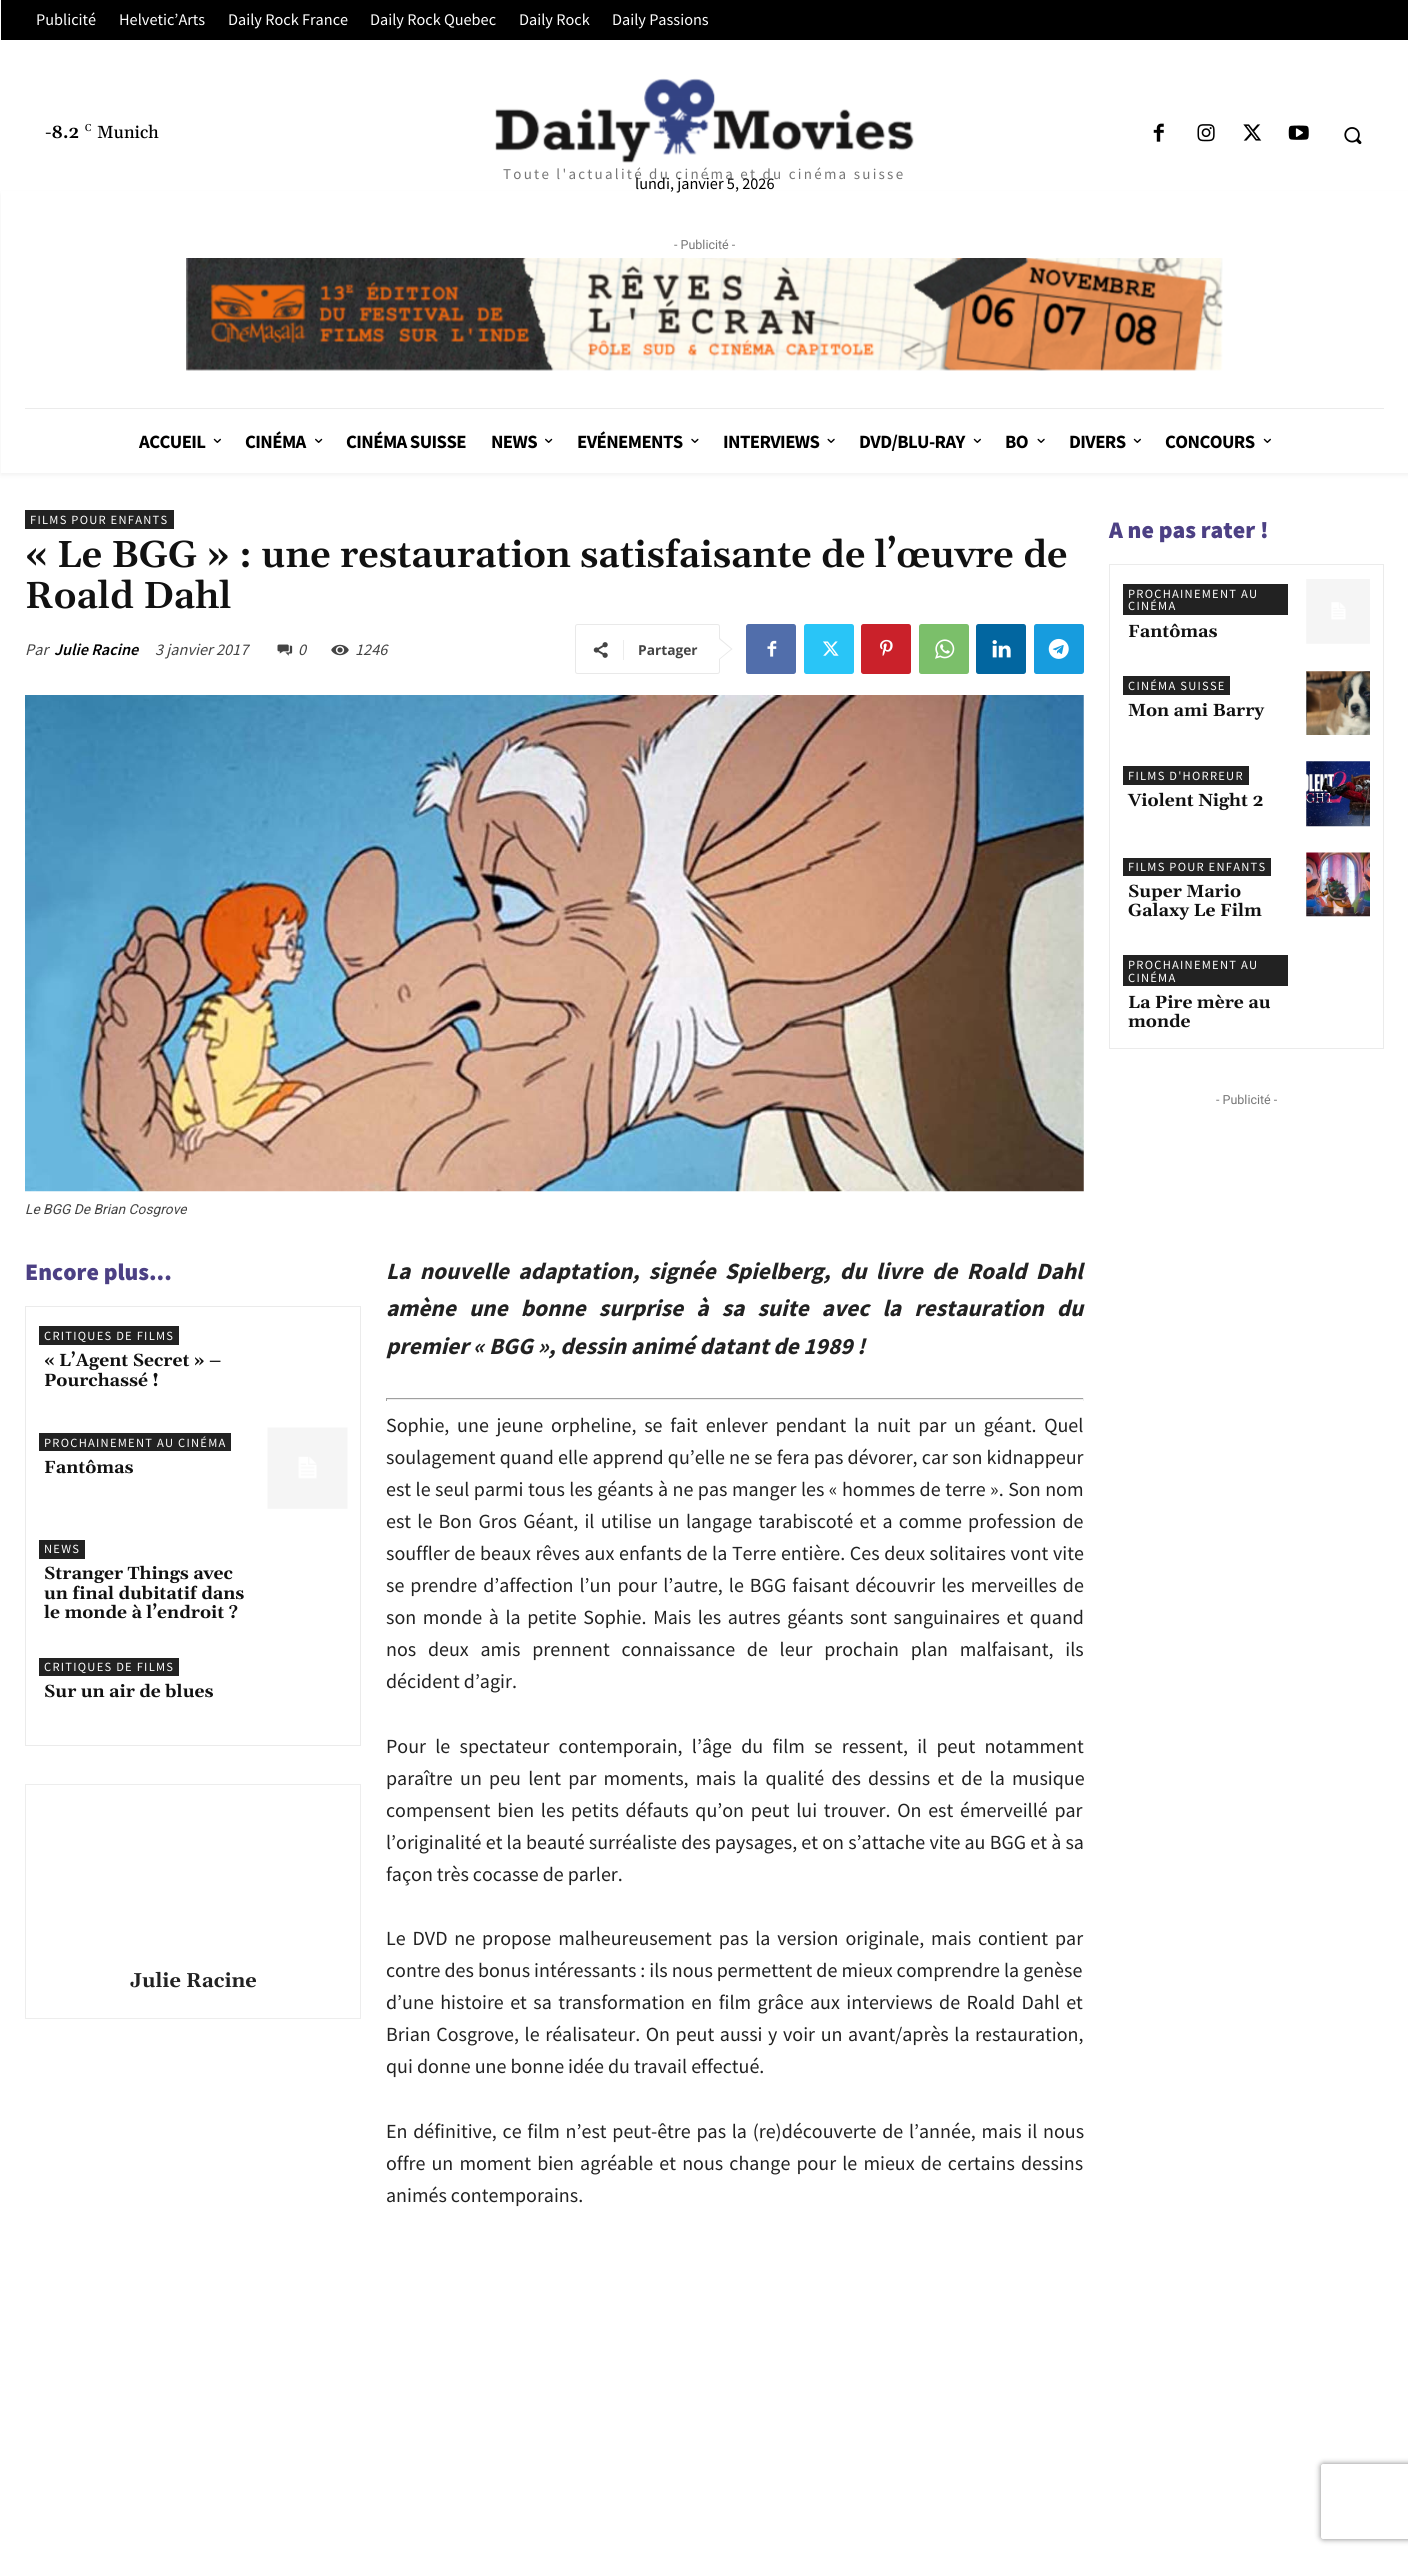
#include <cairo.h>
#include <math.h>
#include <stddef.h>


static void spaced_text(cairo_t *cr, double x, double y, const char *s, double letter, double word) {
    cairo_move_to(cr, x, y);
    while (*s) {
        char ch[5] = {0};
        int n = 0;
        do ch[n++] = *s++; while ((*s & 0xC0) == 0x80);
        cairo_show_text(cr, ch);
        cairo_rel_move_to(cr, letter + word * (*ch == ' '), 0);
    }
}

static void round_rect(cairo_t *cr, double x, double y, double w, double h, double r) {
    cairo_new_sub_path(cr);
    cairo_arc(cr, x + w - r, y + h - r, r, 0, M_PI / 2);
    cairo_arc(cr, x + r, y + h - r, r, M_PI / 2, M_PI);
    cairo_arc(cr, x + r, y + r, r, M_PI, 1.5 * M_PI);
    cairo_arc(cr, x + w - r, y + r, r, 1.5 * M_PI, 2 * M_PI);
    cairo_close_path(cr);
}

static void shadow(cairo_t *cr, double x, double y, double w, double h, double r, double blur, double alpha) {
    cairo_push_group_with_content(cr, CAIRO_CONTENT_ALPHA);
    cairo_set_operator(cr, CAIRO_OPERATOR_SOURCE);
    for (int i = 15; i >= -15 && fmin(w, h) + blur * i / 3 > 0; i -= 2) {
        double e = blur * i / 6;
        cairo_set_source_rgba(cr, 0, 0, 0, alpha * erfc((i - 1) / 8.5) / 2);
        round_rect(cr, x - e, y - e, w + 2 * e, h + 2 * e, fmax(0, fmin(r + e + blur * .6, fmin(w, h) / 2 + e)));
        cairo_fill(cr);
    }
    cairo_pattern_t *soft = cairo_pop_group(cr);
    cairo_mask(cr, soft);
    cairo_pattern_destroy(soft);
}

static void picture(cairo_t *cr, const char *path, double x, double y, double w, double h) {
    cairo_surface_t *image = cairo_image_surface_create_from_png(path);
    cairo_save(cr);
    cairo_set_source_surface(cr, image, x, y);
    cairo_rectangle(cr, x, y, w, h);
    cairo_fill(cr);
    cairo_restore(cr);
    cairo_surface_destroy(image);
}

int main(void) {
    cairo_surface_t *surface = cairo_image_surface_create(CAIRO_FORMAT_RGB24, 1408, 2556);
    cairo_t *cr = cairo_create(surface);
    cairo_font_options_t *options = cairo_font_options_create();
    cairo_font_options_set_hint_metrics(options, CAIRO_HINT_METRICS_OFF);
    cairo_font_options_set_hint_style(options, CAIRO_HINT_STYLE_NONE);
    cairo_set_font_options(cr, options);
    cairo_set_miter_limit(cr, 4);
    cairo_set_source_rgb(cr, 1, 1, 1);
    cairo_paint(cr);
    cairo_set_source_rgb(cr, 0, 0, 0);
    cairo_rectangle(cr, 1, 0, 1407, 40);
    cairo_fill(cr);
    cairo_select_font_face(cr, "Source Sans Pro", CAIRO_FONT_SLANT_NORMAL, CAIRO_FONT_WEIGHT_NORMAL);
    cairo_set_font_size(cr, 16.25);
    cairo_set_source_rgb(cr, 1, 1, 1);
    cairo_move_to(cr, 36, 25);
    cairo_show_text(cr, "Publicité");
    cairo_move_to(cr, 119, 25);
    cairo_show_text(cr, "Helvetic’Arts");
    cairo_move_to(cr, 228, 25);
    cairo_show_text(cr, "Daily Rock France");
    cairo_move_to(cr, 370, 25);
    cairo_show_text(cr, "Daily Rock Quebec");
    cairo_move_to(cr, 519, 25);
    cairo_show_text(cr, "Daily Rock");
    cairo_move_to(cr, 612, 25);
    cairo_show_text(cr, "Daily Passions");
    cairo_select_font_face(cr, "Gelasio SemiBold", CAIRO_FONT_SLANT_NORMAL, CAIRO_FONT_WEIGHT_NORMAL);
    cairo_set_font_size(cr, 17.5);
    cairo_set_source_rgb(cr, 0, 0, 0);
    cairo_move_to(cr, 45, 138);
    cairo_show_text(cr, "-8.2");
    cairo_select_font_face(cr, "Gelasio", CAIRO_FONT_SLANT_NORMAL, CAIRO_FONT_WEIGHT_NORMAL);
    cairo_set_font_size(cr, 10);
    cairo_move_to(cr, 85, 131);
    cairo_show_text(cr, "C");
    cairo_select_font_face(cr, "Gelasio Medium", CAIRO_FONT_SLANT_NORMAL, CAIRO_FONT_WEIGHT_NORMAL);
    cairo_set_font_size(cr, 17.5);
    cairo_move_to(cr, 97, 138);
    cairo_show_text(cr, "Munich");
    picture(cr, "img1.png", 1153, 123, 11, 19);
    picture(cr, "img2.png", 1197, 124, 18, 18);
    picture(cr, "img3.png", 1243, 124, 19, 17);
    picture(cr, "img4.png", 1288, 125, 21, 15);
    picture(cr, "img5.png", 1344, 127, 18, 18);
    picture(cr, "img6.png", 495, 78, 419, 85);
    cairo_select_font_face(cr, "Source Sans Pro", CAIRO_FONT_SLANT_NORMAL, CAIRO_FONT_WEIGHT_NORMAL);
    cairo_set_font_size(cr, 15);
    cairo_set_source_rgb(cr, 0.463, 0.463, 0.463);
    spaced_text(cr, 503, 179, "Toute l'actualité du cinéma et du cinéma suisse", 2.25, 0);
    cairo_set_font_size(cr, 16.25);
    cairo_set_source_rgb(cr, 0, 0, 0);
    cairo_move_to(cr, 635, 189);
    cairo_show_text(cr, "lundi, janvier 5, 2026");
    picture(cr, "img7.png", 186, 258, 1037, 113);
    cairo_set_source_rgb(cr, 0.918, 0.918, 0.918);
    cairo_rectangle(cr, 25, 408, 1359, 1);
    cairo_fill(cr);
    cairo_save(cr);
    cairo_set_fill_rule(cr, CAIRO_FILL_RULE_EVEN_ODD);
    cairo_new_path(cr);
    cairo_move_to(cr, 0, 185);
    cairo_line_to(cr, 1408, 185);
    cairo_line_to(cr, 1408, 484);
    cairo_line_to(cr, 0, 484);
    cairo_close_path(cr);
    cairo_move_to(cr, 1, 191);
    cairo_line_to(cr, 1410, 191);
    cairo_line_to(cr, 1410, 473);
    cairo_line_to(cr, 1, 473);
    cairo_close_path(cr);
    cairo_clip(cr);
    cairo_set_source_rgb(cr, 0, 0, 0);
    shadow(cr, 1, 194, 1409, 281, 0, 2.5, 0.06);
    cairo_restore(cr);
    cairo_select_font_face(cr, "Roboto", CAIRO_FONT_SLANT_NORMAL, CAIRO_FONT_WEIGHT_NORMAL);
    cairo_set_font_size(cr, 12.5);
    cairo_set_source_rgb(cr, 0.463, 0.463, 0.463);
    cairo_move_to(cr, 674, 249);
    cairo_show_text(cr, "- Publicité -");
    cairo_select_font_face(cr, "Source Sans Pro", CAIRO_FONT_SLANT_NORMAL, CAIRO_FONT_WEIGHT_BOLD);
    cairo_set_font_size(cr, 18.75);
    cairo_set_source_rgb(cr, 0, 0, 0);
    spaced_text(cr, 139, 448, "ACCUEIL", -0.6, 0);
    picture(cr, "img8.png", 213, 438, 8, 5);
    spaced_text(cr, 245, 448, "CINÉMA", -0.6, 0);
    picture(cr, "img9.png", 315, 438, 8, 5);
    spaced_text(cr, 346, 448, "CINÉMA SUISSE", -0.6, 0);
    spaced_text(cr, 491, 448, "NEWS", -0.6, 0);
    picture(cr, "img9.png", 545, 438, 8, 5);
    spaced_text(cr, 577, 448, "EVÉNEMENTS", -0.6, 0);
    picture(cr, "img10.png", 691, 438, 8, 5);
    spaced_text(cr, 723, 448, "INTERVIEWS", -0.6, 0);
    picture(cr, "img11.png", 827, 438, 8, 5);
    spaced_text(cr, 859, 448, "DVD/BLU-RAY", -0.6, 0);
    picture(cr, "img8.png", 973, 438, 8, 5);
    spaced_text(cr, 1005, 448, "BO", -0.6, 0);
    picture(cr, "img11.png", 1037, 438, 8, 5);
    spaced_text(cr, 1069, 448, "DIVERS", -0.6, 0);
    picture(cr, "img8.png", 1133, 438, 8, 5);
    spaced_text(cr, 1165, 448, "CONCOURS", -0.6, 0);
    picture(cr, "img8.png", 1263, 438, 8, 5);
    cairo_set_source_rgb(cr, 0.133, 0.133, 0.133);
    cairo_rectangle(cr, 25, 510, 149, 19);
    cairo_fill(cr);
    cairo_select_font_face(cr, "Source Sans Pro", CAIRO_FONT_SLANT_NORMAL, CAIRO_FONT_WEIGHT_NORMAL);
    cairo_set_font_size(cr, 12.5);
    cairo_set_source_rgb(cr, 1, 1, 1);
    spaced_text(cr, 30, 524, "FILMS POUR ENFANTS", 1.25, 0);
    cairo_select_font_face(cr, "Gelasio SemiBold", CAIRO_FONT_SLANT_NORMAL, CAIRO_FONT_WEIGHT_NORMAL);
    cairo_set_font_size(cr, 37.5);
    cairo_set_source_rgb(cr, 0.067, 0.067, 0.067);
    cairo_move_to(cr, 25, 567);
    cairo_show_text(cr, "« Le BGG » : une restauration satisfaisante de l’œuvre de");
    cairo_move_to(cr, 25, 608);
    cairo_show_text(cr, "Roald Dahl");
    cairo_select_font_face(cr, "Source Sans Pro", CAIRO_FONT_SLANT_ITALIC, CAIRO_FONT_WEIGHT_NORMAL);
    cairo_set_font_size(cr, 16.25);
    cairo_set_source_rgb(cr, 0.267, 0.267, 0.267);
    cairo_move_to(cr, 25, 655);
    cairo_show_text(cr, "Par");
    cairo_select_font_face(cr, "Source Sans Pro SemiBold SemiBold", CAIRO_FONT_SLANT_ITALIC, CAIRO_FONT_WEIGHT_NORMAL);
    cairo_set_source_rgb(cr, 0, 0, 0);
    cairo_move_to(cr, 54, 655);
    cairo_show_text(cr, "Julie Racine");
    cairo_select_font_face(cr, "Source Sans Pro", CAIRO_FONT_SLANT_ITALIC, CAIRO_FONT_WEIGHT_NORMAL);
    cairo_set_source_rgb(cr, 0.267, 0.267, 0.267);
    cairo_move_to(cr, 155, 655);
    cairo_show_text(cr, "3 janvier 2017");
    picture(cr, "img12.png", 277, 644, 16, 12);
    cairo_move_to(cr, 298, 655);
    cairo_show_text(cr, "0");
    picture(cr, "img13.png", 331, 644, 18, 12);
    cairo_move_to(cr, 355, 655);
    cairo_show_text(cr, "1246");
    round_rect(cr, 575.5, 624.5, 144, 49, 2);
    cairo_set_source_rgb(cr, 0.914, 0.914, 0.914);
    cairo_set_line_width(cr, 1);
    cairo_stroke(cr);
    cairo_new_path(cr);
    cairo_move_to(cr, 719, 660);
    cairo_line_to(cr, 719, 637.5);
    cairo_line_to(cr, 732.5, 649);
    cairo_close_path(cr);
    cairo_fill(cr);
    picture(cr, "img14.png", 593, 642, 15, 16);
    cairo_set_source_rgb(cr, 0.922, 0.922, 0.922);
    cairo_rectangle(cr, 623, 640, 1, 20);
    cairo_fill(cr);
    cairo_select_font_face(cr, "Open Sans", CAIRO_FONT_SLANT_NORMAL, CAIRO_FONT_WEIGHT_BOLD);
    cairo_set_font_size(cr, 13.75);
    cairo_set_source_rgb(cr, 0.267, 0.267, 0.267);
    cairo_move_to(cr, 638, 655);
    cairo_show_text(cr, "Partager");
    cairo_set_source_rgb(cr, 1, 1, 1);
    cairo_new_path(cr);
    cairo_move_to(cr, 719, 659);
    cairo_line_to(cr, 719, 639);
    cairo_line_to(cr, 731, 649);
    cairo_close_path(cr);
    cairo_fill(cr);
    cairo_set_source_rgb(cr, 0.318, 0.431, 0.671);
    round_rect(cr, 746, 624, 50, 50, 2.5);
    cairo_fill(cr);
    picture(cr, "img15.png", 767, 640, 10, 17);
    cairo_set_source_rgb(cr, 0.161, 0.773, 0.965);
    round_rect(cr, 804, 624, 50, 50, 2.5);
    cairo_fill(cr);
    picture(cr, "img16.png", 823, 641, 16, 15);
    cairo_set_source_rgb(cr, 0.792, 0.129, 0.165);
    round_rect(cr, 861, 624, 50, 50, 2.5);
    cairo_fill(cr);
    picture(cr, "img17.png", 880, 639, 13, 17);
    cairo_set_source_rgb(cr, 0.482, 0.749, 0.416);
    round_rect(cr, 919, 624, 50, 50, 2.5);
    cairo_fill(cr);
    picture(cr, "img18.png", 935, 639, 20, 20);
    cairo_set_source_rgb(cr, 0.008, 0.4, 0.627);
    round_rect(cr, 976, 624, 50, 50, 2.5);
    cairo_fill(cr);
    picture(cr, "img19.png", 992, 640, 19, 18);
    cairo_set_source_rgb(cr, 0.09, 0.612, 0.871);
    round_rect(cr, 1034, 624, 50, 50, 2.5);
    cairo_fill(cr);
    picture(cr, "img20.png", 1048, 638, 21, 21);
    picture(cr, "img21.png", 25, 695, 1059, 497);
    cairo_select_font_face(cr, "Roboto", CAIRO_FONT_SLANT_ITALIC, CAIRO_FONT_WEIGHT_NORMAL);
    cairo_set_source_rgb(cr, 0.267, 0.267, 0.267);
    cairo_move_to(cr, 25, 1214);
    cairo_show_text(cr, "Le BGG De Brian Cosgrove");
    cairo_select_font_face(cr, "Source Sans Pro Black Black", CAIRO_FONT_SLANT_NORMAL, CAIRO_FONT_WEIGHT_NORMAL);
    cairo_set_font_size(cr, 23.75);
    cairo_set_source_rgb(cr, 0.298, 0.251, 0.518);
    cairo_move_to(cr, 25, 1280);
    cairo_show_text(cr, "Encore plus...");
    cairo_rectangle(cr, 25.5, 1306.5, 335, 439);
    cairo_set_source_rgb(cr, 0.918, 0.918, 0.918);
    cairo_stroke(cr);
    cairo_set_source_rgb(cr, 0.133, 0.133, 0.133);
    cairo_rectangle(cr, 39, 1326, 140, 19);
    cairo_fill(cr);
    cairo_select_font_face(cr, "Source Sans Pro", CAIRO_FONT_SLANT_NORMAL, CAIRO_FONT_WEIGHT_NORMAL);
    cairo_set_font_size(cr, 12.5);
    cairo_set_source_rgb(cr, 1, 1, 1);
    spaced_text(cr, 44, 1340, "CRITIQUES DE FILMS", 1.25, 0);
    cairo_select_font_face(cr, "Gelasio", CAIRO_FONT_SLANT_NORMAL, CAIRO_FONT_WEIGHT_BOLD);
    cairo_set_font_size(cr, 17.5);
    cairo_set_source_rgb(cr, 0.067, 0.067, 0.067);
    cairo_move_to(cr, 44, 1366);
    cairo_show_text(cr, "« L’Agent Secret » –");
    cairo_move_to(cr, 44, 1386);
    cairo_show_text(cr, "Pourchassé !");
    cairo_set_source_rgb(cr, 0.133, 0.133, 0.133);
    cairo_rectangle(cr, 39, 1433, 192, 18);
    cairo_fill(cr);
    cairo_select_font_face(cr, "Source Sans Pro", CAIRO_FONT_SLANT_NORMAL, CAIRO_FONT_WEIGHT_NORMAL);
    cairo_set_font_size(cr, 12.5);
    cairo_set_source_rgb(cr, 1, 1, 1);
    spaced_text(cr, 44, 1447, "PROCHAINEMENT AU CINÉMA", 1.25, 0);
    cairo_select_font_face(cr, "Gelasio", CAIRO_FONT_SLANT_NORMAL, CAIRO_FONT_WEIGHT_BOLD);
    cairo_set_font_size(cr, 17.5);
    cairo_set_source_rgb(cr, 0.067, 0.067, 0.067);
    cairo_move_to(cr, 44, 1473);
    cairo_show_text(cr, "Fantômas");
    picture(cr, "img22.png", 267, 1427, 81, 82);
    cairo_set_source_rgb(cr, 0.133, 0.133, 0.133);
    cairo_rectangle(cr, 39, 1540, 46, 19);
    cairo_fill(cr);
    cairo_select_font_face(cr, "Source Sans Pro", CAIRO_FONT_SLANT_NORMAL, CAIRO_FONT_WEIGHT_NORMAL);
    cairo_set_font_size(cr, 12.5);
    cairo_set_source_rgb(cr, 1, 1, 1);
    spaced_text(cr, 44, 1553, "NEWS", 1.25, 0);
    cairo_select_font_face(cr, "Gelasio", CAIRO_FONT_SLANT_NORMAL, CAIRO_FONT_WEIGHT_BOLD);
    cairo_set_font_size(cr, 17.5);
    cairo_set_source_rgb(cr, 0.067, 0.067, 0.067);
    cairo_move_to(cr, 44, 1579);
    cairo_show_text(cr, "Stranger Things avec");
    cairo_move_to(cr, 44, 1599);
    cairo_show_text(cr, "un final dubitatif dans");
    cairo_move_to(cr, 44, 1618);
    cairo_show_text(cr, "le monde à l’endroit ?");
    cairo_set_source_rgb(cr, 0.133, 0.133, 0.133);
    cairo_rectangle(cr, 39, 1658, 140, 18);
    cairo_fill(cr);
    cairo_select_font_face(cr, "Source Sans Pro", CAIRO_FONT_SLANT_NORMAL, CAIRO_FONT_WEIGHT_NORMAL);
    cairo_set_font_size(cr, 12.5);
    cairo_set_source_rgb(cr, 1, 1, 1);
    spaced_text(cr, 44, 1671, "CRITIQUES DE FILMS", 1.25, 0);
    cairo_select_font_face(cr, "Gelasio", CAIRO_FONT_SLANT_NORMAL, CAIRO_FONT_WEIGHT_BOLD);
    cairo_set_font_size(cr, 17.5);
    cairo_set_source_rgb(cr, 0.067, 0.067, 0.067);
    cairo_move_to(cr, 44, 1697);
    cairo_show_text(cr, "Sur un air de blues");
    cairo_rectangle(cr, 25.5, 1784.5, 335, 234);
    cairo_set_source_rgb(cr, 0.929, 0.929, 0.929);
    cairo_stroke(cr);
    cairo_set_font_size(cr, 20);
    cairo_set_source_rgb(cr, 0.133, 0.133, 0.133);
    cairo_move_to(cr, 130, 1987);
    cairo_show_text(cr, "Julie Racine");
    cairo_select_font_face(cr, "Source Sans Pro", CAIRO_FONT_SLANT_ITALIC, CAIRO_FONT_WEIGHT_BOLD);
    cairo_set_font_size(cr, 23.3);
    spaced_text(cr, 386, 1279, "La nouvelle adaptation, signée Spielberg, du livre de Roald Dahl", 0, 4.75);
    spaced_text(cr, 386, 1316, "amène une bonne surprise à sa suite avec la restauration du", 0, 8.5);
    cairo_move_to(cr, 386, 1354);
    cairo_show_text(cr, "premier « BGG », dessin animé datant de 1989 !");
    cairo_set_source_rgb(cr, 0.624, 0.624, 0.624);
    cairo_rectangle(cr, 386, 1398, 698, 1);
    cairo_fill(cr);
    cairo_set_source_rgb(cr, 0.933, 0.933, 0.933);
    cairo_rectangle(cr, 1083, 1398, 1, 3);
    cairo_fill(cr);
    cairo_rectangle(cr, 386, 1399, 698, 1);
    cairo_fill(cr);
    cairo_set_source_rgb(cr, 0.624, 0.624, 0.624);
    cairo_rectangle(cr, 386, 1398, 1, 3);
    cairo_fill(cr);
    cairo_select_font_face(cr, "Source Sans Pro", CAIRO_FONT_SLANT_NORMAL, CAIRO_FONT_WEIGHT_NORMAL);
    cairo_set_font_size(cr, 20);
    cairo_set_source_rgb(cr, 0.133, 0.133, 0.133);
    spaced_text(cr, 386, 1432, "Sophie, une jeune orpheline, se fait enlever pendant la nuit par un géant. Quel", 0, 3.75);
    spaced_text(cr, 386, 1464, "soulagement quand elle apprend qu’elle ne se fera pas dévorer, car son kidnappeur", 0, 0.25);
    spaced_text(cr, 386, 1496, "est le seul parmi tous les géants à ne pas manger les « hommes de terre ». Son nom", 0, 0.5);
    spaced_text(cr, 386, 1528, "est le Bon Gros Géant, il utilise un langage tarabiscoté et a comme profession de", 0, 2.25);
    spaced_text(cr, 386, 1560, "souffler de beaux rêves aux enfants de la Terre entière. Ces deux solitaires vont vite", 0, 0.6);
    spaced_text(cr, 386, 1592, "se prendre d’affection l’un pour l’autre, le BGG faisant découvrir les merveilles de", 0, 2);
    spaced_text(cr, 386, 1624, "son monde à la petite Sophie. Mais les autres géants sont sanguinaires et quand", 0, 2.6);
    spaced_text(cr, 386, 1656, "nos deux amis prennent connaissance de leur prochain plan malfaisant, ils", 0, 7.75);
    cairo_move_to(cr, 386, 1688);
    cairo_show_text(cr, "décident d’agir.");
    spaced_text(cr, 386, 1753, "Pour le spectateur contemporain, l’âge du film se ressent, il peut notamment", 0, 5.25);
    spaced_text(cr, 386, 1785, "paraître un peu lent par moments, mais la qualité des dessins et de la musique", 0, 3.25);
    spaced_text(cr, 386, 1817, "compensent bien les petits défauts qu’on peut lui trouver. On est émerveillé par", 0, 2.75);
    spaced_text(cr, 386, 1849, "l’originalité et la beauté surréaliste des paysages, et on s’attache vite au BGG et à sa", 0, 0.2);
    cairo_move_to(cr, 386, 1881);
    cairo_show_text(cr, "façon très cocasse de parler.");
    spaced_text(cr, 386, 1945, "Le DVD ne propose malheureusement pas la version originale, mais contient par", 0, 2.9);
    cairo_move_to(cr, 386, 1977);
    cairo_show_text(cr, "contre des bonus intéressants : ils nous permettent de mieux comprendre la genèse");
    spaced_text(cr, 386, 2009, "d’une histoire et sa transformation en film grâce aux interviews de Roald Dahl et", 0, 2.4);
    spaced_text(cr, 386, 2041, "Brian Cosgrove, le réalisateur. On peut aussi y voir un avant/après la restauration,", 0, 1.6);
    cairo_move_to(cr, 386, 2073);
    cairo_show_text(cr, "qui donne une bonne idée du travail effectué.");
    spaced_text(cr, 386, 2138, "En définitive, ce film n’est peut-être pas la (re)découverte de l’année, mais il nous", 0, 1.75);
    spaced_text(cr, 386, 2170, "offre un moment bien agréable et nous change pour le mieux de certains dessins", 0, 2.1);
    cairo_move_to(cr, 386, 2202);
    cairo_show_text(cr, "animés contemporains.");
    cairo_select_font_face(cr, "Source Sans Pro Black Black", CAIRO_FONT_SLANT_NORMAL, CAIRO_FONT_WEIGHT_NORMAL);
    cairo_set_font_size(cr, 23.75);
    cairo_set_source_rgb(cr, 0.298, 0.251, 0.518);
    cairo_move_to(cr, 1109, 538);
    cairo_show_text(cr, "A ne pas rater !");
    cairo_rectangle(cr, 1109.5, 564.5, 274, 484);
    cairo_set_source_rgb(cr, 0.918, 0.918, 0.918);
    cairo_stroke(cr);
    cairo_set_source_rgb(cr, 0.133, 0.133, 0.133);
    cairo_rectangle(cr, 1123, 584, 165, 31);
    cairo_fill(cr);
    cairo_select_font_face(cr, "Source Sans Pro", CAIRO_FONT_SLANT_NORMAL, CAIRO_FONT_WEIGHT_NORMAL);
    cairo_set_font_size(cr, 12.5);
    cairo_set_source_rgb(cr, 1, 1, 1);
    spaced_text(cr, 1128, 598, "PROCHAINEMENT AU", 1.25, 0);
    spaced_text(cr, 1128, 610, "CINÉMA", 1.25, 0);
    cairo_select_font_face(cr, "Gelasio", CAIRO_FONT_SLANT_NORMAL, CAIRO_FONT_WEIGHT_BOLD);
    cairo_set_font_size(cr, 17.5);
    cairo_set_source_rgb(cr, 0.067, 0.067, 0.067);
    cairo_move_to(cr, 1128, 637);
    cairo_show_text(cr, "Fantômas");
    picture(cr, "img23.png", 1306, 579, 64, 65);
    cairo_set_source_rgb(cr, 0.133, 0.133, 0.133);
    cairo_rectangle(cr, 1123, 676, 107, 19);
    cairo_fill(cr);
    cairo_select_font_face(cr, "Source Sans Pro", CAIRO_FONT_SLANT_NORMAL, CAIRO_FONT_WEIGHT_NORMAL);
    cairo_set_font_size(cr, 12.5);
    cairo_set_source_rgb(cr, 1, 1, 1);
    spaced_text(cr, 1128, 690, "CINÉMA SUISSE", 1.25, 0);
    cairo_select_font_face(cr, "Gelasio", CAIRO_FONT_SLANT_NORMAL, CAIRO_FONT_WEIGHT_BOLD);
    cairo_set_font_size(cr, 17.5);
    cairo_set_source_rgb(cr, 0.067, 0.067, 0.067);
    cairo_move_to(cr, 1128, 716);
    cairo_show_text(cr, "Mon ami Barry");
    picture(cr, "img24.png", 1306, 671, 64, 64);
    cairo_set_source_rgb(cr, 0.133, 0.133, 0.133);
    cairo_rectangle(cr, 1123, 766, 126, 19);
    cairo_fill(cr);
    cairo_select_font_face(cr, "Source Sans Pro", CAIRO_FONT_SLANT_NORMAL, CAIRO_FONT_WEIGHT_NORMAL);
    cairo_set_font_size(cr, 12.5);
    cairo_set_source_rgb(cr, 1, 1, 1);
    spaced_text(cr, 1128, 780, "FILMS D'HORREUR", 1.25, 0);
    cairo_select_font_face(cr, "Gelasio", CAIRO_FONT_SLANT_NORMAL, CAIRO_FONT_WEIGHT_BOLD);
    cairo_set_font_size(cr, 17.5);
    cairo_set_source_rgb(cr, 0.067, 0.067, 0.067);
    cairo_move_to(cr, 1128, 806);
    cairo_show_text(cr, "Violent Night 2");
    picture(cr, "img25.png", 1306, 761, 64, 66);
    cairo_set_source_rgb(cr, 0.133, 0.133, 0.133);
    cairo_rectangle(cr, 1123, 858, 148, 18);
    cairo_fill(cr);
    cairo_select_font_face(cr, "Source Sans Pro", CAIRO_FONT_SLANT_NORMAL, CAIRO_FONT_WEIGHT_NORMAL);
    cairo_set_font_size(cr, 12.5);
    cairo_set_source_rgb(cr, 1, 1, 1);
    spaced_text(cr, 1128, 871, "FILMS POUR ENFANTS", 1.25, 0);
    cairo_select_font_face(cr, "Gelasio", CAIRO_FONT_SLANT_NORMAL, CAIRO_FONT_WEIGHT_BOLD);
    cairo_set_font_size(cr, 17.5);
    cairo_set_source_rgb(cr, 0.067, 0.067, 0.067);
    cairo_move_to(cr, 1128, 897);
    cairo_show_text(cr, "Super Mario");
    cairo_move_to(cr, 1128, 916);
    cairo_show_text(cr, "Galaxy Le Film");
    picture(cr, "img26.png", 1306, 852, 64, 65);
    cairo_set_source_rgb(cr, 0.133, 0.133, 0.133);
    cairo_rectangle(cr, 1123, 955, 165, 31);
    cairo_fill(cr);
    cairo_select_font_face(cr, "Source Sans Pro", CAIRO_FONT_SLANT_NORMAL, CAIRO_FONT_WEIGHT_NORMAL);
    cairo_set_font_size(cr, 12.5);
    cairo_set_source_rgb(cr, 1, 1, 1);
    spaced_text(cr, 1128, 969, "PROCHAINEMENT AU", 1.25, 0);
    spaced_text(cr, 1128, 982, "CINÉMA", 1.25, 0);
    cairo_select_font_face(cr, "Gelasio", CAIRO_FONT_SLANT_NORMAL, CAIRO_FONT_WEIGHT_BOLD);
    cairo_set_font_size(cr, 17.5);
    cairo_set_source_rgb(cr, 0.067, 0.067, 0.067);
    cairo_move_to(cr, 1128, 1008);
    cairo_show_text(cr, "La Pire mère au");
    cairo_move_to(cr, 1128, 1027);
    cairo_show_text(cr, "monde");
    cairo_select_font_face(cr, "Roboto", CAIRO_FONT_SLANT_NORMAL, CAIRO_FONT_WEIGHT_NORMAL);
    cairo_set_font_size(cr, 12.5);
    cairo_set_source_rgb(cr, 0.463, 0.463, 0.463);
    cairo_move_to(cr, 1216, 1104);
    cairo_show_text(cr, "- Publicité -");
    cairo_save(cr);
    cairo_set_fill_rule(cr, CAIRO_FILL_RULE_EVEN_ODD);
    cairo_new_path(cr);
    cairo_move_to(cr, 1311, 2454);
    cairo_line_to(cr, 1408, 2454);
    cairo_line_to(cr, 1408, 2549);
    cairo_line_to(cr, 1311, 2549);
    cairo_close_path(cr);
    cairo_move_to(cr, 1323.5, 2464);
    cairo_line_to(cr, 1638.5, 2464);
    cairo_curve_to(cr, 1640, 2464, 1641, 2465, 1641, 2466.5);
    cairo_line_to(cr, 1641, 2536.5);
    cairo_curve_to(cr, 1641, 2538, 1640, 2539, 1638.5, 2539);
    cairo_line_to(cr, 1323.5, 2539);
    cairo_curve_to(cr, 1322, 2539, 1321, 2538, 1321, 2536.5);
    cairo_line_to(cr, 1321, 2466.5);
    cairo_curve_to(cr, 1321, 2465, 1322, 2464, 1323.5, 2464);
    cairo_close_path(cr);
    cairo_clip(cr);
    cairo_set_source_rgb(cr, 0.502, 0.502, 0.502);
    shadow(cr, 1321, 2464, 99, 75, 2.5, 3, 1);
    cairo_restore(cr);
    cairo_surface_write_to_png(surface, "page.png");
    cairo_font_options_destroy(options);
    cairo_destroy(cr);
    cairo_surface_destroy(surface);
    return 0;
}
